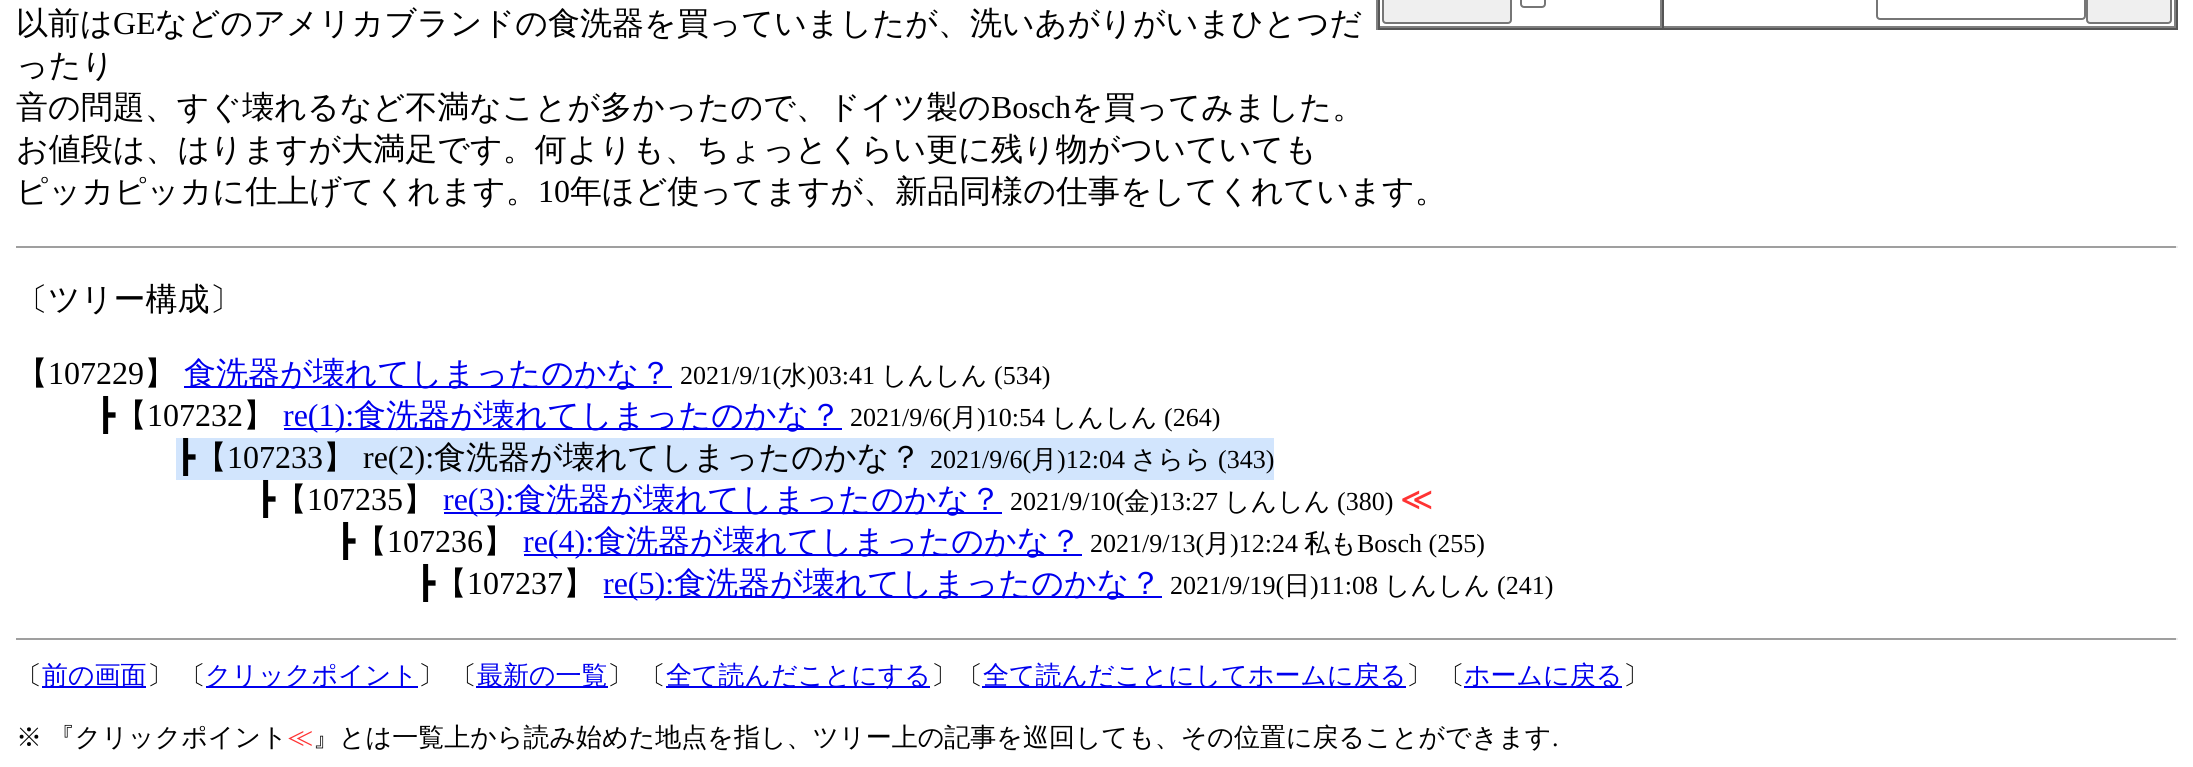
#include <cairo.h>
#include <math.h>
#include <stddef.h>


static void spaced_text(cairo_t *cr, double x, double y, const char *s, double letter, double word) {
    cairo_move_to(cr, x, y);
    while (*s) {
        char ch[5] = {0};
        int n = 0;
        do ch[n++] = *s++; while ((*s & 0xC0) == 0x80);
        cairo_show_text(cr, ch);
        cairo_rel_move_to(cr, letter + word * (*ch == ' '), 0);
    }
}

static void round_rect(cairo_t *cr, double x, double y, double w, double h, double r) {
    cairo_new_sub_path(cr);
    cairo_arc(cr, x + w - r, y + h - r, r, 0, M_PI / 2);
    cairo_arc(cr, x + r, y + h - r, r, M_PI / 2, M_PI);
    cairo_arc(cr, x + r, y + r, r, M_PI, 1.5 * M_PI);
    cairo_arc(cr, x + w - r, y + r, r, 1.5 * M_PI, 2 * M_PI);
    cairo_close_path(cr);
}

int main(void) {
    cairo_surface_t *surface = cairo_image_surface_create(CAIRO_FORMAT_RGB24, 2193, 767);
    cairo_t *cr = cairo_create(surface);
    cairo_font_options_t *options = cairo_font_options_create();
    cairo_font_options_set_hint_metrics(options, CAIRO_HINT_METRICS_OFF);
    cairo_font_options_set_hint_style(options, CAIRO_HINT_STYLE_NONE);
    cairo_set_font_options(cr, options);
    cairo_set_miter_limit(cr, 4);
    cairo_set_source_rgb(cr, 1, 1, 1);
    cairo_paint(cr);
    cairo_select_font_face(cr, "WenQuanYi Zen Hei Medium", CAIRO_FONT_SLANT_NORMAL, CAIRO_FONT_WEIGHT_NORMAL);
    cairo_set_font_size(cr, 32);
    cairo_set_source_rgb(cr, 0, 0, 0);
    cairo_move_to(cr, 16, 34);
    cairo_show_text(cr, "以前は");
    cairo_select_font_face(cr, "Liberation Serif", CAIRO_FONT_SLANT_NORMAL, CAIRO_FONT_WEIGHT_NORMAL);
    cairo_move_to(cr, 113, 34);
    cairo_show_text(cr, "GE");
    cairo_select_font_face(cr, "WenQuanYi Zen Hei Medium", CAIRO_FONT_SLANT_NORMAL, CAIRO_FONT_WEIGHT_NORMAL);
    cairo_move_to(cr, 155, 34);
    cairo_show_text(cr, "などのアメリカブランドの食洗器を買っていましたが、洗いあがりがいまひとつだ");
    cairo_move_to(cr, 16, 76);
    cairo_show_text(cr, "ったり");
    cairo_move_to(cr, 16, 118);
    cairo_show_text(cr, "音の問題、すぐ壊れるなど不満なことが多かったので、ドイツ製の");
    cairo_select_font_face(cr, "Liberation Serif", CAIRO_FONT_SLANT_NORMAL, CAIRO_FONT_WEIGHT_NORMAL);
    cairo_move_to(cr, 991, 118);
    cairo_show_text(cr, "Bosch");
    cairo_select_font_face(cr, "WenQuanYi Zen Hei Medium", CAIRO_FONT_SLANT_NORMAL, CAIRO_FONT_WEIGHT_NORMAL);
    cairo_move_to(cr, 1071, 118);
    cairo_show_text(cr, "を買ってみました。");
    cairo_move_to(cr, 16, 160);
    cairo_show_text(cr, "お値段は、はりますが大満足です。何よりも、ちょっとくらい更に残り物がついていても");
    cairo_move_to(cr, 16, 202);
    cairo_show_text(cr, "ピッカピッカに仕上げてくれます。");
    cairo_select_font_face(cr, "Liberation Serif", CAIRO_FONT_SLANT_NORMAL, CAIRO_FONT_WEIGHT_NORMAL);
    cairo_move_to(cr, 538, 202);
    cairo_show_text(cr, "10");
    cairo_select_font_face(cr, "WenQuanYi Zen Hei Medium", CAIRO_FONT_SLANT_NORMAL, CAIRO_FONT_WEIGHT_NORMAL);
    cairo_move_to(cr, 570, 202);
    cairo_show_text(cr, "年ほど使ってますが、新品同様の仕事をしてくれています。");
    cairo_set_source_rgb(cr, 0.333, 0.333, 0.333);
    cairo_rectangle(cr, 2176, 0, 2, 30);
    cairo_fill(cr);
    cairo_rectangle(cr, 1376, 28, 802, 2);
    cairo_fill(cr);
    cairo_set_source_rgb(cr, 0.502, 0.502, 0.502);
    cairo_rectangle(cr, 1376, 0, 2, 30);
    cairo_fill(cr);
    cairo_rectangle(cr, 1660, 0, 2, 28);
    cairo_fill(cr);
    cairo_rectangle(cr, 1378, 26, 284, 2);
    cairo_fill(cr);
    cairo_set_source_rgb(cr, 0.333, 0.333, 0.333);
    cairo_rectangle(cr, 1378, 0, 2, 28);
    cairo_fill(cr);
    cairo_set_source_rgb(cr, 0.937, 0.937, 0.937);
    round_rect(cr, 1383, -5, 128, 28, 3);
    cairo_fill_preserve(cr);
    cairo_set_source_rgb(cr, 0.463, 0.463, 0.463);
    cairo_stroke(cr);
    round_rect(cr, 1521, -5, 24, 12, 3);
    cairo_stroke(cr);
    cairo_set_source_rgb(cr, 0.502, 0.502, 0.502);
    cairo_rectangle(cr, 2174, 0, 2, 28);
    cairo_fill(cr);
    cairo_rectangle(cr, 1662, 26, 514, 2);
    cairo_fill(cr);
    cairo_set_source_rgb(cr, 0.333, 0.333, 0.333);
    cairo_rectangle(cr, 1662, 0, 2, 28);
    cairo_fill(cr);
    round_rect(cr, 1877, -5, 208, 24, 3);
    cairo_set_source_rgb(cr, 0.463, 0.463, 0.463);
    cairo_stroke(cr);
    cairo_set_source_rgb(cr, 0.937, 0.937, 0.937);
    round_rect(cr, 2087, -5, 84, 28, 3);
    cairo_fill_preserve(cr);
    cairo_set_source_rgb(cr, 0.463, 0.463, 0.463);
    cairo_stroke(cr);
    cairo_set_source_rgb(cr, 0.624, 0.624, 0.624);
    cairo_rectangle(cr, 16, 246, 2162, 2);
    cairo_fill(cr);
    cairo_set_source_rgb(cr, 0.933, 0.933, 0.933);
    cairo_rectangle(cr, 2176, 246, 2, 2);
    cairo_fill(cr);
    cairo_set_source_rgb(cr, 0, 0, 0);
    cairo_move_to(cr, 16, 310);
    cairo_show_text(cr, "〔ツリー構成〕");
    cairo_move_to(cr, 16, 384);
    cairo_show_text(cr, "【");
    cairo_select_font_face(cr, "Liberation Serif", CAIRO_FONT_SLANT_NORMAL, CAIRO_FONT_WEIGHT_NORMAL);
    cairo_move_to(cr, 48, 384);
    cairo_show_text(cr, "107229");
    cairo_select_font_face(cr, "WenQuanYi Zen Hei Medium", CAIRO_FONT_SLANT_NORMAL, CAIRO_FONT_WEIGHT_NORMAL);
    cairo_move_to(cr, 144, 384);
    cairo_show_text(cr, "】");
    cairo_set_source_rgb(cr, 0, 0, 0.933);
    cairo_rectangle(cr, 184, 386, 488, 2);
    cairo_fill(cr);
    cairo_move_to(cr, 184, 384);
    cairo_show_text(cr, "食洗器が壊れてしまったのかな？");
    cairo_select_font_face(cr, "Liberation Serif", CAIRO_FONT_SLANT_NORMAL, CAIRO_FONT_WEIGHT_NORMAL);
    cairo_set_font_size(cr, 26);
    cairo_set_source_rgb(cr, 0, 0, 0);
    cairo_move_to(cr, 680, 384);
    cairo_show_text(cr, "2021/9/1(");
    cairo_select_font_face(cr, "WenQuanYi Zen Hei Medium", CAIRO_FONT_SLANT_NORMAL, CAIRO_FONT_WEIGHT_NORMAL);
    cairo_move_to(cr, 781, 384);
    cairo_show_text(cr, "水");
    cairo_select_font_face(cr, "Liberation Serif", CAIRO_FONT_SLANT_NORMAL, CAIRO_FONT_WEIGHT_NORMAL);
    cairo_move_to(cr, 807, 384);
    cairo_show_text(cr, ")03:41");
    cairo_select_font_face(cr, "WenQuanYi Zen Hei Medium", CAIRO_FONT_SLANT_NORMAL, CAIRO_FONT_WEIGHT_NORMAL);
    cairo_move_to(cr, 881, 384);
    cairo_show_text(cr, "しんしん");
    cairo_select_font_face(cr, "Liberation Serif", CAIRO_FONT_SLANT_NORMAL, CAIRO_FONT_WEIGHT_NORMAL);
    cairo_move_to(cr, 994, 384);
    cairo_show_text(cr, "(534)");
    cairo_select_font_face(cr, "DejaVu Sans", CAIRO_FONT_SLANT_NORMAL, CAIRO_FONT_WEIGHT_NORMAL);
    cairo_set_font_size(cr, 32);
    cairo_move_to(cr, 96, 426);
    cairo_show_text(cr, "┣");
    cairo_select_font_face(cr, "WenQuanYi Zen Hei Medium", CAIRO_FONT_SLANT_NORMAL, CAIRO_FONT_WEIGHT_NORMAL);
    cairo_move_to(cr, 115, 426);
    cairo_show_text(cr, "【");
    cairo_select_font_face(cr, "Liberation Serif", CAIRO_FONT_SLANT_NORMAL, CAIRO_FONT_WEIGHT_NORMAL);
    cairo_move_to(cr, 147, 426);
    cairo_show_text(cr, "107232");
    cairo_select_font_face(cr, "WenQuanYi Zen Hei Medium", CAIRO_FONT_SLANT_NORMAL, CAIRO_FONT_WEIGHT_NORMAL);
    cairo_move_to(cr, 243, 426);
    cairo_show_text(cr, "】");
    cairo_set_source_rgb(cr, 0, 0, 0.933);
    cairo_rectangle(cr, 284, 428, 558, 2);
    cairo_fill(cr);
    cairo_select_font_face(cr, "Liberation Serif", CAIRO_FONT_SLANT_NORMAL, CAIRO_FONT_WEIGHT_NORMAL);
    cairo_move_to(cr, 283, 426);
    cairo_show_text(cr, "re(1):");
    cairo_select_font_face(cr, "WenQuanYi Zen Hei Medium", CAIRO_FONT_SLANT_NORMAL, CAIRO_FONT_WEIGHT_NORMAL);
    cairo_move_to(cr, 354, 426);
    cairo_show_text(cr, "食洗器が壊れてしまったのかな？");
    cairo_select_font_face(cr, "Liberation Serif", CAIRO_FONT_SLANT_NORMAL, CAIRO_FONT_WEIGHT_NORMAL);
    cairo_set_font_size(cr, 26);
    cairo_set_source_rgb(cr, 0, 0, 0);
    cairo_move_to(cr, 850, 426);
    cairo_show_text(cr, "2021/9/6(");
    cairo_select_font_face(cr, "WenQuanYi Zen Hei Medium", CAIRO_FONT_SLANT_NORMAL, CAIRO_FONT_WEIGHT_NORMAL);
    cairo_move_to(cr, 951, 426);
    cairo_show_text(cr, "月");
    cairo_select_font_face(cr, "Liberation Serif", CAIRO_FONT_SLANT_NORMAL, CAIRO_FONT_WEIGHT_NORMAL);
    cairo_move_to(cr, 977, 426);
    cairo_show_text(cr, ")10:54");
    cairo_select_font_face(cr, "WenQuanYi Zen Hei Medium", CAIRO_FONT_SLANT_NORMAL, CAIRO_FONT_WEIGHT_NORMAL);
    cairo_move_to(cr, 1051, 426);
    cairo_show_text(cr, "しんしん");
    cairo_select_font_face(cr, "Liberation Serif", CAIRO_FONT_SLANT_NORMAL, CAIRO_FONT_WEIGHT_NORMAL);
    cairo_move_to(cr, 1164, 426);
    cairo_show_text(cr, "(264)");
    cairo_set_source_rgb(cr, 0.824, 0.898, 0.992);
    cairo_rectangle(cr, 176, 438, 1098, 42);
    cairo_fill(cr);
    cairo_select_font_face(cr, "DejaVu Sans", CAIRO_FONT_SLANT_NORMAL, CAIRO_FONT_WEIGHT_NORMAL);
    cairo_set_font_size(cr, 32);
    cairo_set_source_rgb(cr, 0, 0, 0);
    cairo_move_to(cr, 176, 468);
    cairo_show_text(cr, "┣");
    cairo_select_font_face(cr, "WenQuanYi Zen Hei Medium", CAIRO_FONT_SLANT_NORMAL, CAIRO_FONT_WEIGHT_NORMAL);
    cairo_move_to(cr, 195, 468);
    cairo_show_text(cr, "【");
    cairo_select_font_face(cr, "Liberation Serif", CAIRO_FONT_SLANT_NORMAL, CAIRO_FONT_WEIGHT_NORMAL);
    cairo_move_to(cr, 227, 468);
    cairo_show_text(cr, "107233");
    cairo_select_font_face(cr, "WenQuanYi Zen Hei Medium", CAIRO_FONT_SLANT_NORMAL, CAIRO_FONT_WEIGHT_NORMAL);
    cairo_move_to(cr, 323, 468);
    cairo_show_text(cr, "】");
    cairo_select_font_face(cr, "Liberation Serif", CAIRO_FONT_SLANT_NORMAL, CAIRO_FONT_WEIGHT_NORMAL);
    cairo_move_to(cr, 363, 468);
    cairo_show_text(cr, "re(2):");
    cairo_select_font_face(cr, "WenQuanYi Zen Hei Medium", CAIRO_FONT_SLANT_NORMAL, CAIRO_FONT_WEIGHT_NORMAL);
    cairo_move_to(cr, 434, 468);
    cairo_show_text(cr, "食洗器が壊れてしまったのかな？");
    cairo_select_font_face(cr, "Liberation Serif", CAIRO_FONT_SLANT_NORMAL, CAIRO_FONT_WEIGHT_NORMAL);
    cairo_set_font_size(cr, 26);
    cairo_move_to(cr, 930, 468);
    cairo_show_text(cr, "2021/9/6(");
    cairo_select_font_face(cr, "WenQuanYi Zen Hei Medium", CAIRO_FONT_SLANT_NORMAL, CAIRO_FONT_WEIGHT_NORMAL);
    cairo_move_to(cr, 1031, 468);
    cairo_show_text(cr, "月");
    cairo_select_font_face(cr, "Liberation Serif", CAIRO_FONT_SLANT_NORMAL, CAIRO_FONT_WEIGHT_NORMAL);
    cairo_move_to(cr, 1057, 468);
    cairo_show_text(cr, ")12:04");
    cairo_select_font_face(cr, "WenQuanYi Zen Hei Medium", CAIRO_FONT_SLANT_NORMAL, CAIRO_FONT_WEIGHT_NORMAL);
    cairo_move_to(cr, 1131, 468);
    cairo_show_text(cr, "さらら");
    cairo_select_font_face(cr, "Liberation Serif", CAIRO_FONT_SLANT_NORMAL, CAIRO_FONT_WEIGHT_NORMAL);
    cairo_move_to(cr, 1218, 468);
    cairo_show_text(cr, "(343)");
    cairo_select_font_face(cr, "DejaVu Sans", CAIRO_FONT_SLANT_NORMAL, CAIRO_FONT_WEIGHT_NORMAL);
    cairo_set_font_size(cr, 32);
    cairo_move_to(cr, 256, 510);
    cairo_show_text(cr, "┣");
    cairo_select_font_face(cr, "WenQuanYi Zen Hei Medium", CAIRO_FONT_SLANT_NORMAL, CAIRO_FONT_WEIGHT_NORMAL);
    cairo_move_to(cr, 275, 510);
    cairo_show_text(cr, "【");
    cairo_select_font_face(cr, "Liberation Serif", CAIRO_FONT_SLANT_NORMAL, CAIRO_FONT_WEIGHT_NORMAL);
    cairo_move_to(cr, 307, 510);
    cairo_show_text(cr, "107235");
    cairo_select_font_face(cr, "WenQuanYi Zen Hei Medium", CAIRO_FONT_SLANT_NORMAL, CAIRO_FONT_WEIGHT_NORMAL);
    cairo_move_to(cr, 403, 510);
    cairo_show_text(cr, "】");
    cairo_set_source_rgb(cr, 0, 0, 0.933);
    cairo_rectangle(cr, 444, 512, 558, 2);
    cairo_fill(cr);
    cairo_select_font_face(cr, "Liberation Serif", CAIRO_FONT_SLANT_NORMAL, CAIRO_FONT_WEIGHT_NORMAL);
    cairo_move_to(cr, 443, 510);
    cairo_show_text(cr, "re(3):");
    cairo_select_font_face(cr, "WenQuanYi Zen Hei Medium", CAIRO_FONT_SLANT_NORMAL, CAIRO_FONT_WEIGHT_NORMAL);
    cairo_move_to(cr, 514, 510);
    cairo_show_text(cr, "食洗器が壊れてしまったのかな？");
    cairo_select_font_face(cr, "Liberation Serif", CAIRO_FONT_SLANT_NORMAL, CAIRO_FONT_WEIGHT_NORMAL);
    cairo_set_font_size(cr, 26);
    cairo_set_source_rgb(cr, 0, 0, 0);
    cairo_move_to(cr, 1010, 510);
    cairo_show_text(cr, "2021/9/10(");
    cairo_select_font_face(cr, "WenQuanYi Zen Hei Medium", CAIRO_FONT_SLANT_NORMAL, CAIRO_FONT_WEIGHT_NORMAL);
    cairo_move_to(cr, 1124, 510);
    cairo_show_text(cr, "金");
    cairo_select_font_face(cr, "Liberation Serif", CAIRO_FONT_SLANT_NORMAL, CAIRO_FONT_WEIGHT_NORMAL);
    cairo_move_to(cr, 1150, 510);
    cairo_show_text(cr, ")13:27");
    cairo_select_font_face(cr, "WenQuanYi Zen Hei Medium", CAIRO_FONT_SLANT_NORMAL, CAIRO_FONT_WEIGHT_NORMAL);
    cairo_move_to(cr, 1224, 510);
    cairo_show_text(cr, "しんしん");
    cairo_select_font_face(cr, "Liberation Serif", CAIRO_FONT_SLANT_NORMAL, CAIRO_FONT_WEIGHT_NORMAL);
    cairo_move_to(cr, 1337, 510);
    cairo_show_text(cr, "(380)");
    cairo_select_font_face(cr, "DejaVu Sans", CAIRO_FONT_SLANT_NORMAL, CAIRO_FONT_WEIGHT_NORMAL);
    cairo_set_font_size(cr, 32);
    cairo_set_source_rgb(cr, 1, 0.2, 0.2);
    cairo_move_to(cr, 1400, 510);
    cairo_show_text(cr, "≪");
    cairo_set_source_rgb(cr, 0, 0, 0);
    cairo_move_to(cr, 336, 552);
    cairo_show_text(cr, "┣");
    cairo_select_font_face(cr, "WenQuanYi Zen Hei Medium", CAIRO_FONT_SLANT_NORMAL, CAIRO_FONT_WEIGHT_NORMAL);
    cairo_move_to(cr, 355, 552);
    cairo_show_text(cr, "【");
    cairo_select_font_face(cr, "Liberation Serif", CAIRO_FONT_SLANT_NORMAL, CAIRO_FONT_WEIGHT_NORMAL);
    cairo_move_to(cr, 387, 552);
    cairo_show_text(cr, "107236");
    cairo_select_font_face(cr, "WenQuanYi Zen Hei Medium", CAIRO_FONT_SLANT_NORMAL, CAIRO_FONT_WEIGHT_NORMAL);
    cairo_move_to(cr, 483, 552);
    cairo_show_text(cr, "】");
    cairo_set_source_rgb(cr, 0, 0, 0.933);
    cairo_rectangle(cr, 524, 554, 558, 2);
    cairo_fill(cr);
    cairo_select_font_face(cr, "Liberation Serif", CAIRO_FONT_SLANT_NORMAL, CAIRO_FONT_WEIGHT_NORMAL);
    cairo_move_to(cr, 523, 552);
    cairo_show_text(cr, "re(4):");
    cairo_select_font_face(cr, "WenQuanYi Zen Hei Medium", CAIRO_FONT_SLANT_NORMAL, CAIRO_FONT_WEIGHT_NORMAL);
    cairo_move_to(cr, 594, 552);
    cairo_show_text(cr, "食洗器が壊れてしまったのかな？");
    cairo_select_font_face(cr, "Liberation Serif", CAIRO_FONT_SLANT_NORMAL, CAIRO_FONT_WEIGHT_NORMAL);
    cairo_set_font_size(cr, 26);
    cairo_set_source_rgb(cr, 0, 0, 0);
    cairo_move_to(cr, 1090, 552);
    cairo_show_text(cr, "2021/9/13(");
    cairo_select_font_face(cr, "WenQuanYi Zen Hei Medium", CAIRO_FONT_SLANT_NORMAL, CAIRO_FONT_WEIGHT_NORMAL);
    cairo_move_to(cr, 1204, 552);
    cairo_show_text(cr, "月");
    cairo_select_font_face(cr, "Liberation Serif", CAIRO_FONT_SLANT_NORMAL, CAIRO_FONT_WEIGHT_NORMAL);
    cairo_move_to(cr, 1230, 552);
    cairo_show_text(cr, ")12:24");
    cairo_select_font_face(cr, "WenQuanYi Zen Hei Medium", CAIRO_FONT_SLANT_NORMAL, CAIRO_FONT_WEIGHT_NORMAL);
    cairo_move_to(cr, 1304, 552);
    cairo_show_text(cr, "私も");
    cairo_select_font_face(cr, "Liberation Serif", CAIRO_FONT_SLANT_NORMAL, CAIRO_FONT_WEIGHT_NORMAL);
    cairo_move_to(cr, 1357, 552);
    cairo_show_text(cr, "Bosch (255)");
    cairo_select_font_face(cr, "DejaVu Sans", CAIRO_FONT_SLANT_NORMAL, CAIRO_FONT_WEIGHT_NORMAL);
    cairo_set_font_size(cr, 32);
    cairo_move_to(cr, 416, 594);
    cairo_show_text(cr, "┣");
    cairo_select_font_face(cr, "WenQuanYi Zen Hei Medium", CAIRO_FONT_SLANT_NORMAL, CAIRO_FONT_WEIGHT_NORMAL);
    cairo_move_to(cr, 435, 594);
    cairo_show_text(cr, "【");
    cairo_select_font_face(cr, "Liberation Serif", CAIRO_FONT_SLANT_NORMAL, CAIRO_FONT_WEIGHT_NORMAL);
    cairo_move_to(cr, 467, 594);
    cairo_show_text(cr, "107237");
    cairo_select_font_face(cr, "WenQuanYi Zen Hei Medium", CAIRO_FONT_SLANT_NORMAL, CAIRO_FONT_WEIGHT_NORMAL);
    cairo_move_to(cr, 563, 594);
    cairo_show_text(cr, "】");
    cairo_set_source_rgb(cr, 0, 0, 0.933);
    cairo_rectangle(cr, 604, 596, 558, 2);
    cairo_fill(cr);
    cairo_select_font_face(cr, "Liberation Serif", CAIRO_FONT_SLANT_NORMAL, CAIRO_FONT_WEIGHT_NORMAL);
    cairo_move_to(cr, 603, 594);
    cairo_show_text(cr, "re(5):");
    cairo_select_font_face(cr, "WenQuanYi Zen Hei Medium", CAIRO_FONT_SLANT_NORMAL, CAIRO_FONT_WEIGHT_NORMAL);
    cairo_move_to(cr, 674, 594);
    cairo_show_text(cr, "食洗器が壊れてしまったのかな？");
    cairo_select_font_face(cr, "Liberation Serif", CAIRO_FONT_SLANT_NORMAL, CAIRO_FONT_WEIGHT_NORMAL);
    cairo_set_font_size(cr, 26);
    cairo_set_source_rgb(cr, 0, 0, 0);
    cairo_move_to(cr, 1170, 594);
    cairo_show_text(cr, "2021/9/19(");
    cairo_select_font_face(cr, "WenQuanYi Zen Hei Medium", CAIRO_FONT_SLANT_NORMAL, CAIRO_FONT_WEIGHT_NORMAL);
    cairo_move_to(cr, 1284, 594);
    cairo_show_text(cr, "日");
    cairo_select_font_face(cr, "Liberation Serif", CAIRO_FONT_SLANT_NORMAL, CAIRO_FONT_WEIGHT_NORMAL);
    cairo_move_to(cr, 1310, 594);
    cairo_show_text(cr, ")11:08");
    cairo_select_font_face(cr, "WenQuanYi Zen Hei Medium", CAIRO_FONT_SLANT_NORMAL, CAIRO_FONT_WEIGHT_NORMAL);
    cairo_move_to(cr, 1384, 594);
    cairo_show_text(cr, "しんしん");
    cairo_select_font_face(cr, "Liberation Serif", CAIRO_FONT_SLANT_NORMAL, CAIRO_FONT_WEIGHT_NORMAL);
    cairo_move_to(cr, 1497, 594);
    cairo_show_text(cr, "(241)");
    cairo_set_source_rgb(cr, 0.624, 0.624, 0.624);
    cairo_rectangle(cr, 16, 638, 2162, 2);
    cairo_fill(cr);
    cairo_set_source_rgb(cr, 0.933, 0.933, 0.933);
    cairo_rectangle(cr, 2176, 638, 2, 2);
    cairo_fill(cr);
    cairo_select_font_face(cr, "WenQuanYi Zen Hei Medium", CAIRO_FONT_SLANT_NORMAL, CAIRO_FONT_WEIGHT_NORMAL);
    cairo_set_source_rgb(cr, 0, 0, 0);
    cairo_move_to(cr, 16, 684);
    cairo_show_text(cr, "〔");
    cairo_set_source_rgb(cr, 0, 0, 0.933);
    cairo_rectangle(cr, 42, 686, 104, 2);
    cairo_fill(cr);
    cairo_move_to(cr, 42, 684);
    cairo_show_text(cr, "前の画面");
    cairo_set_source_rgb(cr, 0, 0, 0);
    spaced_text(cr, 147, 684, "〕 〔", 0, -1);
    cairo_set_source_rgb(cr, 0, 0, 0.933);
    cairo_rectangle(cr, 206, 686, 212, 2);
    cairo_fill(cr);
    cairo_move_to(cr, 205, 684);
    cairo_show_text(cr, "クリックポイント");
    cairo_set_source_rgb(cr, 0, 0, 0);
    spaced_text(cr, 418, 684, "〕 〔", 0, -1);
    cairo_set_source_rgb(cr, 0, 0, 0.933);
    cairo_rectangle(cr, 476, 686, 132, 2);
    cairo_fill(cr);
    cairo_move_to(cr, 477, 684);
    cairo_show_text(cr, "最新の一覧");
    cairo_set_source_rgb(cr, 0, 0, 0);
    spaced_text(cr, 607, 684, "〕 〔", 0, -1);
    cairo_set_source_rgb(cr, 0, 0, 0.933);
    cairo_rectangle(cr, 666, 686, 264, 2);
    cairo_fill(cr);
    cairo_move_to(cr, 666, 684);
    cairo_show_text(cr, "全て読んだことにする");
    cairo_set_source_rgb(cr, 0, 0, 0);
    cairo_move_to(cr, 931, 684);
    cairo_show_text(cr, "〕〔");
    cairo_set_source_rgb(cr, 0, 0, 0.933);
    cairo_rectangle(cr, 982, 686, 424, 2);
    cairo_fill(cr);
    cairo_move_to(cr, 983, 684);
    cairo_show_text(cr, "全て読んだことにしてホームに戻る");
    cairo_set_source_rgb(cr, 0, 0, 0);
    spaced_text(cr, 1406, 684, "〕 〔", 0, -1);
    cairo_set_source_rgb(cr, 0, 0, 0.933);
    cairo_rectangle(cr, 1464, 686, 158, 2);
    cairo_fill(cr);
    cairo_move_to(cr, 1464, 684);
    cairo_show_text(cr, "ホームに戻る");
    cairo_set_source_rgb(cr, 0, 0, 0);
    cairo_move_to(cr, 1623, 684);
    cairo_show_text(cr, "〕");
    spaced_text(cr, 16, 746, "※ 『クリックポイント", 0, -1);
    cairo_set_source_rgb(cr, 1, 0.2, 0.2);
    cairo_move_to(cr, 287, 746);
    cairo_show_text(cr, "≪");
    cairo_set_source_rgb(cr, 0, 0, 0);
    cairo_move_to(cr, 313, 746);
    cairo_show_text(cr, "』とは一覧上から読み始めた地点を指し、ツリー上の記事を巡回しても、その位置に戻ることができます");
    cairo_select_font_face(cr, "Liberation Serif", CAIRO_FONT_SLANT_NORMAL, CAIRO_FONT_WEIGHT_NORMAL);
    cairo_move_to(cr, 1552, 746);
    cairo_show_text(cr, ".");
    cairo_surface_write_to_png(surface, "page.png");
    cairo_font_options_destroy(options);
    cairo_destroy(cr);
    cairo_surface_destroy(surface);
    return 0;
}
